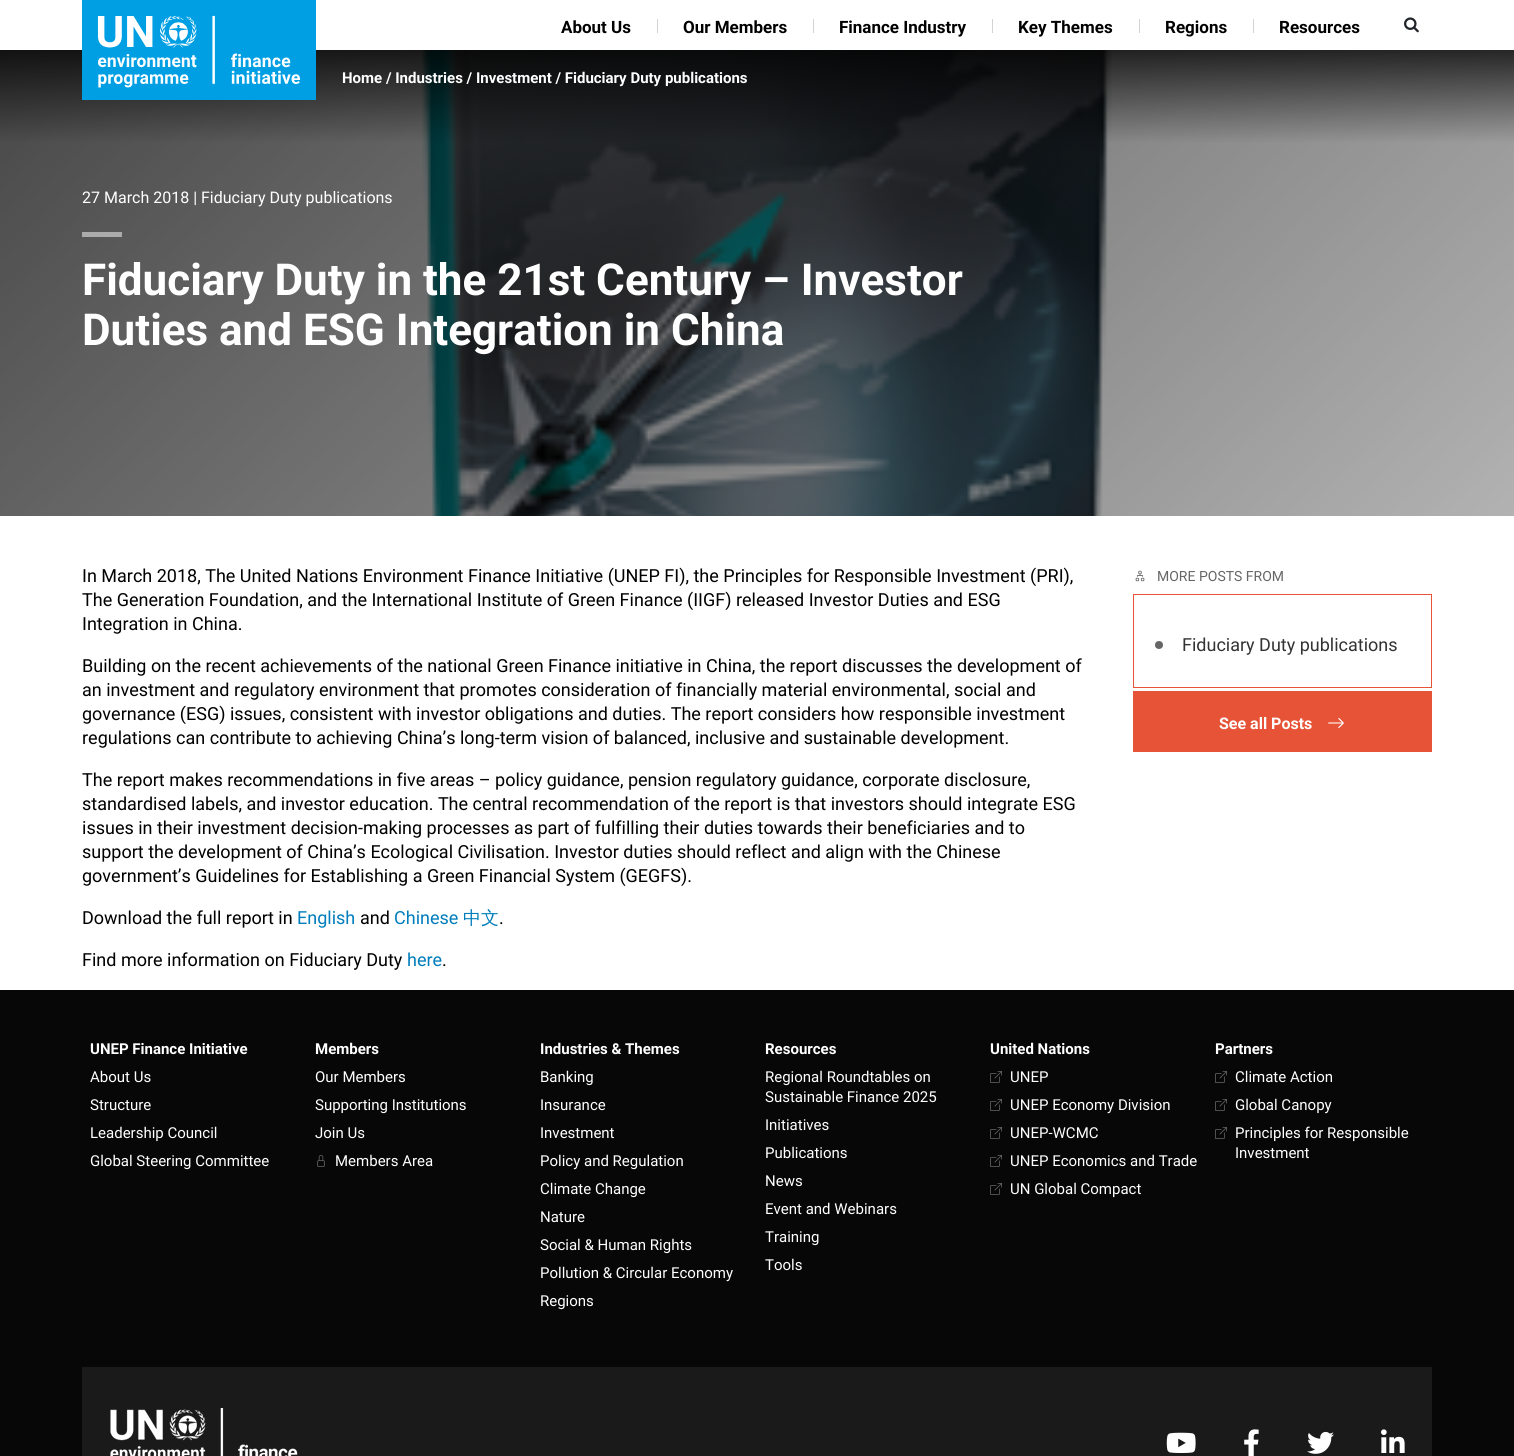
#include <cairo.h>
#include <math.h>
#include <stddef.h>


static void picture(cairo_t *cr, const char *path, double x, double y, double w, double h) {
    cairo_surface_t *image = cairo_image_surface_create_from_png(path);
    cairo_save(cr);
    cairo_set_source_surface(cr, image, x, y);
    cairo_rectangle(cr, x, y, w, h);
    cairo_fill(cr);
    cairo_restore(cr);
    cairo_surface_destroy(image);
}

int main(void) {
    cairo_surface_t *surface = cairo_image_surface_create(CAIRO_FORMAT_RGB24, 1514, 1456);
    cairo_t *cr = cairo_create(surface);
    cairo_font_options_t *options = cairo_font_options_create();
    cairo_font_options_set_hint_metrics(options, CAIRO_HINT_METRICS_OFF);
    cairo_font_options_set_hint_style(options, CAIRO_HINT_STYLE_NONE);
    cairo_set_font_options(cr, options);
    cairo_set_miter_limit(cr, 4);
    cairo_set_source_rgb(cr, 1, 1, 1);
    cairo_paint(cr);
    picture(cr, "img3.png", 0, 50, 1514, 466);
    picture(cr, "img1.png", 82, 0, 234, 100);
    cairo_select_font_face(cr, "Roboto", CAIRO_FONT_SLANT_NORMAL, CAIRO_FONT_WEIGHT_BOLD);
    cairo_set_font_size(cr, 17);
    cairo_set_source_rgb(cr, 0, 0, 0);
    cairo_move_to(cr, 561, 33);
    cairo_show_text(cr, "About Us");
    cairo_set_source_rgb(cr, 0.827, 0.827, 0.827);
    cairo_rectangle(cr, 657, 19, 1, 14);
    cairo_fill(cr);
    cairo_set_source_rgb(cr, 0, 0, 0);
    cairo_move_to(cr, 683, 33);
    cairo_show_text(cr, "Our Members");
    cairo_set_source_rgb(cr, 0.827, 0.827, 0.827);
    cairo_rectangle(cr, 813, 19, 1, 14);
    cairo_fill(cr);
    cairo_set_source_rgb(cr, 0, 0, 0);
    cairo_move_to(cr, 839, 33);
    cairo_show_text(cr, "Finance Industry");
    cairo_set_source_rgb(cr, 0.827, 0.827, 0.827);
    cairo_rectangle(cr, 992, 19, 1, 14);
    cairo_fill(cr);
    cairo_set_source_rgb(cr, 0, 0, 0);
    cairo_move_to(cr, 1018, 33);
    cairo_show_text(cr, "Key Themes");
    cairo_set_source_rgb(cr, 0.827, 0.827, 0.827);
    cairo_rectangle(cr, 1139, 19, 1, 14);
    cairo_fill(cr);
    cairo_set_source_rgb(cr, 0, 0, 0);
    cairo_move_to(cr, 1165, 33);
    cairo_show_text(cr, "Regions");
    cairo_set_source_rgb(cr, 0.827, 0.827, 0.827);
    cairo_rectangle(cr, 1253, 19, 1, 14);
    cairo_fill(cr);
    cairo_set_source_rgb(cr, 0, 0, 0);
    cairo_move_to(cr, 1279, 33);
    cairo_show_text(cr, "Resources");
    picture(cr, "img2.png", 1404, 17, 15, 16);
    cairo_set_font_size(cr, 15);
    cairo_set_source_rgb(cr, 1, 1, 1);
    cairo_move_to(cr, 342, 83);
    cairo_show_text(cr, "Home / Industries / Investment / Fiduciary Duty publications");
    cairo_select_font_face(cr, "Roboto", CAIRO_FONT_SLANT_NORMAL, CAIRO_FONT_WEIGHT_NORMAL);
    cairo_set_font_size(cr, 16);
    cairo_move_to(cr, 82, 203);
    cairo_show_text(cr, "27 March 2018 | Fiduciary Duty publications");
    cairo_set_source_rgb(cr, 0.671, 0.671, 0.671);
    cairo_rectangle(cr, 82, 232, 40, 5);
    cairo_fill(cr);
    cairo_select_font_face(cr, "Roboto", CAIRO_FONT_SLANT_NORMAL, CAIRO_FONT_WEIGHT_BOLD);
    cairo_set_font_size(cr, 44);
    cairo_set_source_rgb(cr, 1, 1, 1);
    cairo_move_to(cr, 82, 295);
    cairo_show_text(cr, "Fiduciary Duty in the 21st Century – Investor");
    cairo_move_to(cr, 82, 345);
    cairo_show_text(cr, "Duties and ESG Integration in China");
    cairo_select_font_face(cr, "Roboto", CAIRO_FONT_SLANT_NORMAL, CAIRO_FONT_WEIGHT_NORMAL);
    cairo_set_font_size(cr, 18);
    cairo_set_source_rgb(cr, 0, 0, 0);
    cairo_move_to(cr, 82, 582);
    cairo_show_text(cr, "In March 2018, The United Nations Environment Finance Initiative (UNEP FI), the Principles for Responsible Investment (PRI),");
    cairo_move_to(cr, 82, 606);
    cairo_show_text(cr, "The Generation Foundation, and the International Institute of Green Finance (IIGF) released Investor Duties and ESG");
    cairo_move_to(cr, 82, 630);
    cairo_show_text(cr, "Integration in China.");
    cairo_move_to(cr, 82, 672);
    cairo_show_text(cr, "Building on the recent achievements of the national Green Finance initiative in China, the report discusses the development of");
    cairo_move_to(cr, 82, 696);
    cairo_show_text(cr, "an investment and regulatory environment that promotes consideration of financially material environmental, social and");
    cairo_move_to(cr, 82, 720);
    cairo_show_text(cr, "governance (ESG) issues, consistent with investor obligations and duties. The report considers how responsible investment");
    cairo_move_to(cr, 82, 744);
    cairo_show_text(cr, "regulations can contribute to achieving China’s long-term vision of balanced, inclusive and sustainable development.");
    cairo_move_to(cr, 82, 786);
    cairo_show_text(cr, "The report makes recommendations in five areas – policy guidance, pension regulatory guidance, corporate disclosure,");
    cairo_move_to(cr, 82, 810);
    cairo_show_text(cr, "standardised labels, and investor education. The central recommendation of the report is that investors should integrate ESG");
    cairo_move_to(cr, 82, 834);
    cairo_show_text(cr, "issues in their investment decision-making processes as part of fulfilling their duties towards their beneficiaries and to");
    cairo_move_to(cr, 82, 858);
    cairo_show_text(cr, "support the development of China’s Ecological Civilisation. Investor duties should reflect and align with the Chinese");
    cairo_move_to(cr, 82, 882);
    cairo_show_text(cr, "government’s Guidelines for Establishing a Green Financial System (GEGFS).");
    cairo_move_to(cr, 82, 924);
    cairo_show_text(cr, "Download the full report in");
    cairo_set_source_rgb(cr, 0, 0.49, 0.737);
    cairo_move_to(cr, 297, 924);
    cairo_show_text(cr, "English");
    cairo_set_source_rgb(cr, 0, 0, 0);
    cairo_move_to(cr, 360, 924);
    cairo_show_text(cr, "and");
    cairo_set_source_rgb(cr, 0, 0.49, 0.737);
    cairo_move_to(cr, 394, 924);
    cairo_show_text(cr, "Chinese");
    cairo_select_font_face(cr, "WenQuanYi Zen Hei Medium", CAIRO_FONT_SLANT_NORMAL, CAIRO_FONT_WEIGHT_NORMAL);
    cairo_move_to(cr, 463, 924);
    cairo_show_text(cr, "中文");
    cairo_select_font_face(cr, "Roboto", CAIRO_FONT_SLANT_NORMAL, CAIRO_FONT_WEIGHT_NORMAL);
    cairo_set_source_rgb(cr, 0, 0, 0);
    cairo_move_to(cr, 499, 924);
    cairo_show_text(cr, ".");
    cairo_move_to(cr, 82, 966);
    cairo_show_text(cr, "Find more information on Fiduciary Duty");
    cairo_set_source_rgb(cr, 0, 0.49, 0.737);
    cairo_move_to(cr, 407, 966);
    cairo_show_text(cr, "here");
    cairo_set_source_rgb(cr, 0, 0, 0);
    cairo_move_to(cr, 442, 966);
    cairo_show_text(cr, ".");
    picture(cr, "img4.png", 1135, 570, 10, 12);
    cairo_set_font_size(cr, 14);
    cairo_set_source_rgb(cr, 0.4, 0.4, 0.4);
    cairo_move_to(cr, 1157, 581);
    cairo_show_text(cr, "MORE POSTS FROM");
    cairo_rectangle(cr, 1133.5, 594.5, 298, 93);
    cairo_set_source_rgb(cr, 0.906, 0.325, 0.212);
    cairo_set_line_width(cr, 1);
    cairo_stroke(cr);
    cairo_set_source_rgb(cr, 0.4, 0.4, 0.4);
    cairo_arc(cr, 1159, 645, 4, 0, 2 * M_PI);
    cairo_fill(cr);
    cairo_set_font_size(cr, 18);
    cairo_set_source_rgb(cr, 0.2, 0.2, 0.2);
    cairo_move_to(cr, 1182, 651);
    cairo_show_text(cr, "Fiduciary Duty publications");
    cairo_set_source_rgb(cr, 0.906, 0.325, 0.212);
    cairo_rectangle(cr, 1133, 691, 299, 61);
    cairo_fill(cr);
    cairo_select_font_face(cr, "Roboto", CAIRO_FONT_SLANT_NORMAL, CAIRO_FONT_WEIGHT_BOLD);
    cairo_set_font_size(cr, 16);
    cairo_set_source_rgb(cr, 1, 1, 1);
    cairo_move_to(cr, 1219, 729);
    cairo_show_text(cr, "See all Posts");
    picture(cr, "img5.png", 1328, 718, 16, 10);
    cairo_set_source_rgb(cr, 0.031, 0.031, 0.031);
    cairo_rectangle(cr, 0, 990, 1514, 466);
    cairo_fill(cr);
    cairo_set_font_size(cr, 15);
    cairo_set_source_rgb(cr, 1, 1, 1);
    cairo_move_to(cr, 90, 1054);
    cairo_show_text(cr, "UNEP Finance Initiative");
    cairo_select_font_face(cr, "Roboto", CAIRO_FONT_SLANT_NORMAL, CAIRO_FONT_WEIGHT_NORMAL);
    cairo_move_to(cr, 90, 1082);
    cairo_show_text(cr, "About Us");
    cairo_move_to(cr, 90, 1110);
    cairo_show_text(cr, "Structure");
    cairo_move_to(cr, 90, 1138);
    cairo_show_text(cr, "Leadership Council");
    cairo_move_to(cr, 90, 1166);
    cairo_show_text(cr, "Global Steering Committee");
    cairo_select_font_face(cr, "Roboto", CAIRO_FONT_SLANT_NORMAL, CAIRO_FONT_WEIGHT_BOLD);
    cairo_move_to(cr, 315, 1054);
    cairo_show_text(cr, "Members");
    cairo_select_font_face(cr, "Roboto", CAIRO_FONT_SLANT_NORMAL, CAIRO_FONT_WEIGHT_NORMAL);
    cairo_move_to(cr, 315, 1082);
    cairo_show_text(cr, "Our Members");
    cairo_move_to(cr, 315, 1110);
    cairo_show_text(cr, "Supporting Institutions");
    cairo_move_to(cr, 315, 1138);
    cairo_show_text(cr, "Join Us");
    picture(cr, "img6.png", 317, 1155, 8, 12);
    cairo_move_to(cr, 335, 1166);
    cairo_show_text(cr, "Members Area");
    cairo_select_font_face(cr, "Roboto", CAIRO_FONT_SLANT_NORMAL, CAIRO_FONT_WEIGHT_BOLD);
    cairo_move_to(cr, 540, 1054);
    cairo_show_text(cr, "Industries & Themes");
    cairo_select_font_face(cr, "Roboto", CAIRO_FONT_SLANT_NORMAL, CAIRO_FONT_WEIGHT_NORMAL);
    cairo_move_to(cr, 540, 1082);
    cairo_show_text(cr, "Banking");
    cairo_move_to(cr, 540, 1110);
    cairo_show_text(cr, "Insurance");
    cairo_move_to(cr, 540, 1138);
    cairo_show_text(cr, "Investment");
    cairo_move_to(cr, 540, 1166);
    cairo_show_text(cr, "Policy and Regulation");
    cairo_move_to(cr, 540, 1194);
    cairo_show_text(cr, "Climate Change");
    cairo_move_to(cr, 540, 1222);
    cairo_show_text(cr, "Nature");
    cairo_move_to(cr, 540, 1250);
    cairo_show_text(cr, "Social & Human Rights");
    cairo_move_to(cr, 540, 1278);
    cairo_show_text(cr, "Pollution & Circular Economy");
    cairo_move_to(cr, 540, 1306);
    cairo_show_text(cr, "Regions");
    cairo_select_font_face(cr, "Roboto", CAIRO_FONT_SLANT_NORMAL, CAIRO_FONT_WEIGHT_BOLD);
    cairo_move_to(cr, 765, 1054);
    cairo_show_text(cr, "Resources");
    cairo_select_font_face(cr, "Roboto", CAIRO_FONT_SLANT_NORMAL, CAIRO_FONT_WEIGHT_NORMAL);
    cairo_move_to(cr, 765, 1082);
    cairo_show_text(cr, "Regional Roundtables on");
    cairo_move_to(cr, 765, 1102);
    cairo_show_text(cr, "Sustainable Finance 2025");
    cairo_move_to(cr, 765, 1130);
    cairo_show_text(cr, "Initiatives");
    cairo_move_to(cr, 765, 1158);
    cairo_show_text(cr, "Publications");
    cairo_move_to(cr, 765, 1186);
    cairo_show_text(cr, "News");
    cairo_move_to(cr, 765, 1214);
    cairo_show_text(cr, "Event and Webinars");
    cairo_move_to(cr, 765, 1242);
    cairo_show_text(cr, "Training");
    cairo_move_to(cr, 765, 1270);
    cairo_show_text(cr, "Tools");
    cairo_select_font_face(cr, "Roboto", CAIRO_FONT_SLANT_NORMAL, CAIRO_FONT_WEIGHT_BOLD);
    cairo_move_to(cr, 990, 1054);
    cairo_show_text(cr, "United Nations");
    picture(cr, "img7.png", 990, 1071, 12, 12);
    cairo_select_font_face(cr, "Roboto", CAIRO_FONT_SLANT_NORMAL, CAIRO_FONT_WEIGHT_NORMAL);
    cairo_move_to(cr, 1010, 1082);
    cairo_show_text(cr, "UNEP");
    picture(cr, "img7.png", 990, 1099, 12, 12);
    cairo_move_to(cr, 1010, 1110);
    cairo_show_text(cr, "UNEP Economy Division");
    picture(cr, "img7.png", 990, 1127, 12, 12);
    cairo_move_to(cr, 1010, 1138);
    cairo_show_text(cr, "UNEP-WCMC");
    picture(cr, "img7.png", 990, 1155, 12, 12);
    cairo_move_to(cr, 1010, 1166);
    cairo_show_text(cr, "UNEP Economics and Trade");
    picture(cr, "img7.png", 990, 1183, 12, 12);
    cairo_move_to(cr, 1010, 1194);
    cairo_show_text(cr, "UN Global Compact");
    cairo_select_font_face(cr, "Roboto", CAIRO_FONT_SLANT_NORMAL, CAIRO_FONT_WEIGHT_BOLD);
    cairo_move_to(cr, 1215, 1054);
    cairo_show_text(cr, "Partners");
    picture(cr, "img7.png", 1215, 1071, 12, 12);
    cairo_select_font_face(cr, "Roboto", CAIRO_FONT_SLANT_NORMAL, CAIRO_FONT_WEIGHT_NORMAL);
    cairo_move_to(cr, 1235, 1082);
    cairo_show_text(cr, "Climate Action");
    picture(cr, "img7.png", 1215, 1099, 12, 12);
    cairo_move_to(cr, 1235, 1110);
    cairo_show_text(cr, "Global Canopy");
    picture(cr, "img7.png", 1215, 1127, 12, 12);
    cairo_move_to(cr, 1235, 1138);
    cairo_show_text(cr, "Principles for Responsible");
    cairo_move_to(cr, 1235, 1158);
    cairo_show_text(cr, "Investment");
    cairo_set_source_rgb(cr, 0.102, 0.102, 0.102);
    cairo_rectangle(cr, 82, 1367, 1350, 89);
    cairo_fill(cr);
    picture(cr, "img8.png", 110, 1408, 188, 48);
    picture(cr, "img9.png", 1166, 1432, 30, 21);
    picture(cr, "img10.png", 1244, 1429, 15, 27);
    picture(cr, "img11.png", 1307, 1431, 27, 23);
    picture(cr, "img12.png", 1381, 1429, 24, 24);
    cairo_surface_write_to_png(surface, "page.png");
    cairo_font_options_destroy(options);
    cairo_destroy(cr);
    cairo_surface_destroy(surface);
    return 0;
}
